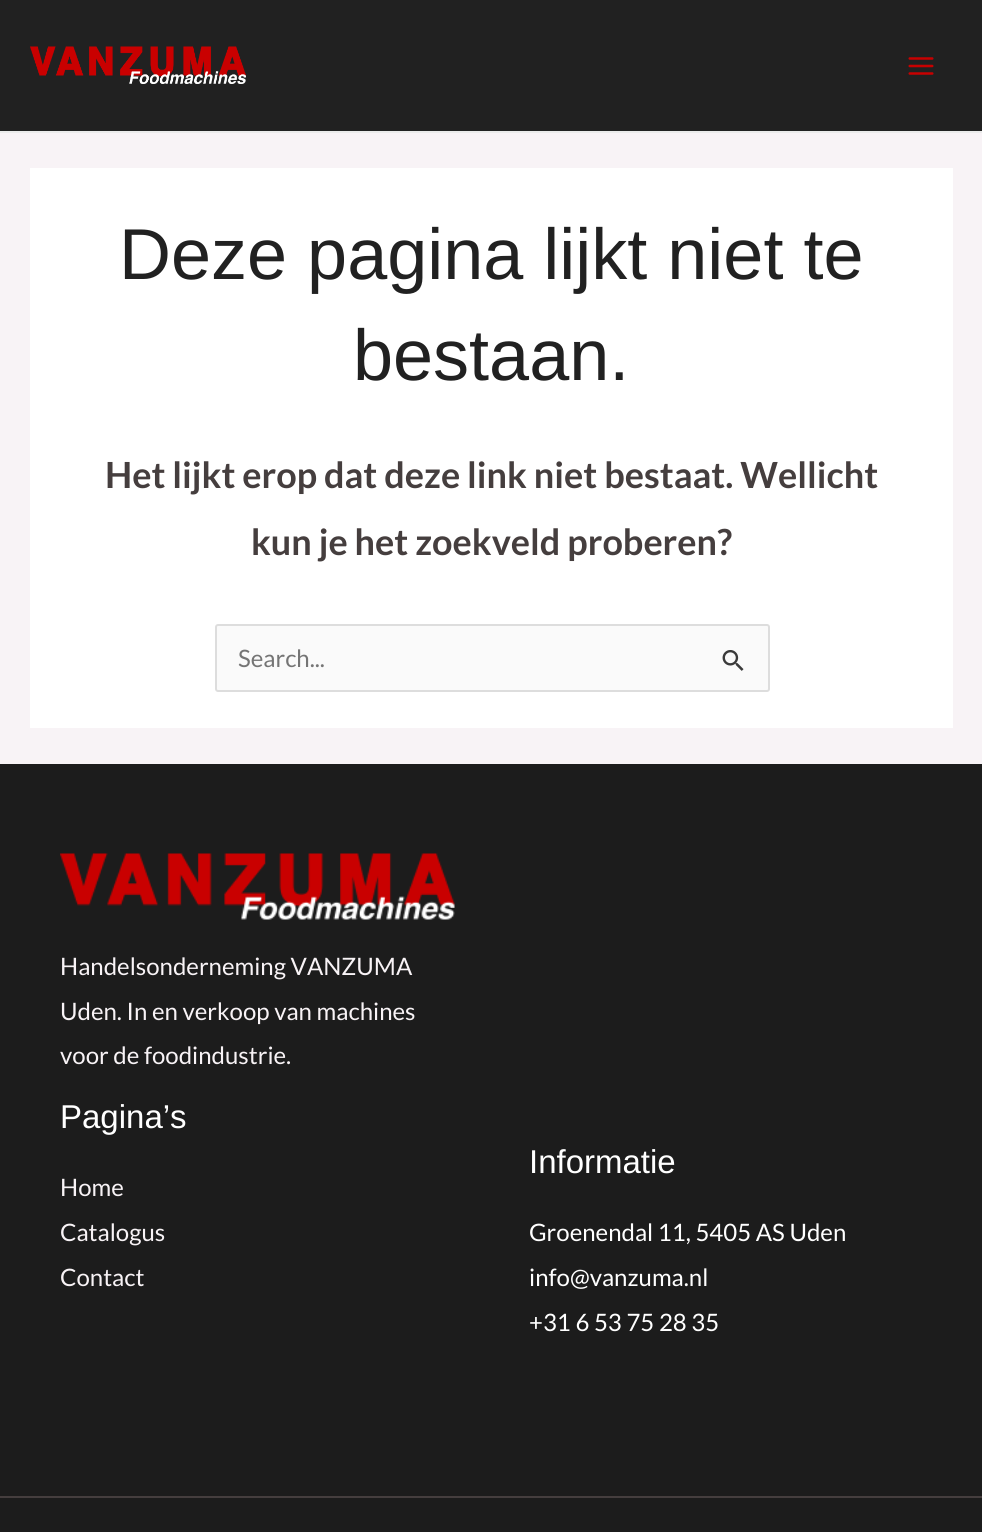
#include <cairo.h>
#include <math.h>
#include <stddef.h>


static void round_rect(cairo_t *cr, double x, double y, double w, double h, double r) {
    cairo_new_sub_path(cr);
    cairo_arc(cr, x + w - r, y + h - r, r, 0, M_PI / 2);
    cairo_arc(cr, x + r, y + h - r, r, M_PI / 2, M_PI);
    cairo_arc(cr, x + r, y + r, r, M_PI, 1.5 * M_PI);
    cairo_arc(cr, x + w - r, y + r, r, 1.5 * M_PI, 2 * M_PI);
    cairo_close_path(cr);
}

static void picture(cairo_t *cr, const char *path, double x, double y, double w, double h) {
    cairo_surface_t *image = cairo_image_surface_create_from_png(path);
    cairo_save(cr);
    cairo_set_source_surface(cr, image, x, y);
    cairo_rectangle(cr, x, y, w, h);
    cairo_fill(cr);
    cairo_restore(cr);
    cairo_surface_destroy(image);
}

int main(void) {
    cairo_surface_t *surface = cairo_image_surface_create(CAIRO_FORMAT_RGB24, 982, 1532);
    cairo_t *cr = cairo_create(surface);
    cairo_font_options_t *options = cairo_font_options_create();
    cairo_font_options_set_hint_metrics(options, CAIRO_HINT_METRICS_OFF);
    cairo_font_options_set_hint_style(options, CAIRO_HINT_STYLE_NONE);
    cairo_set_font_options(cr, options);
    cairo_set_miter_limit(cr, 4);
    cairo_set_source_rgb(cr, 0.969, 0.953, 0.961);
    cairo_paint(cr);
    cairo_set_source_rgb(cr, 0.129, 0.129, 0.129);
    cairo_rectangle(cr, 0, 0, 982, 131);
    cairo_fill(cr);
    cairo_set_source_rgb(cr, 0.918, 0.918, 0.918);
    cairo_rectangle(cr, 0, 131, 982, 2);
    cairo_fill(cr);
    picture(cr, "img1.png", 30, 46, 216, 38);
    picture(cr, "img2.png", 908, 57, 26, 18);
    cairo_set_source_rgb(cr, 1, 1, 1);
    cairo_rectangle(cr, 30, 168, 923, 560);
    cairo_fill(cr);
    cairo_select_font_face(cr, "Liberation Sans", CAIRO_FONT_SLANT_NORMAL, CAIRO_FONT_WEIGHT_NORMAL);
    cairo_set_font_size(cr, 72);
    cairo_set_source_rgb(cr, 0.129, 0.129, 0.129);
    cairo_move_to(cr, 119, 279);
    cairo_show_text(cr, "Deze pagina lijkt niet te");
    cairo_move_to(cr, 353, 380);
    cairo_show_text(cr, "bestaan.");
    cairo_select_font_face(cr, "Lato", CAIRO_FONT_SLANT_NORMAL, CAIRO_FONT_WEIGHT_BOLD);
    cairo_set_font_size(cr, 36);
    cairo_set_source_rgb(cr, 0.271, 0.243, 0.243);
    cairo_move_to(cr, 105, 488);
    cairo_show_text(cr, "Het lijkt erop dat deze link niet bestaat. Wellicht");
    cairo_move_to(cr, 251, 555);
    cairo_show_text(cr, "kun je het zoekveld proberen?");
    cairo_set_source_rgb(cr, 0.98, 0.98, 0.98);
    round_rect(cr, 216, 625, 553, 66, 2);
    cairo_fill_preserve(cr);
    cairo_set_source_rgb(cr, 0.867, 0.867, 0.867);
    cairo_stroke(cr);
    cairo_select_font_face(cr, "Lato", CAIRO_FONT_SLANT_NORMAL, CAIRO_FONT_WEIGHT_NORMAL);
    cairo_set_font_size(cr, 24);
    cairo_set_source_rgb(cr, 0.459, 0.459, 0.459);
    cairo_move_to(cr, 238, 667);
    cairo_show_text(cr, "Search...");
    picture(cr, "img3.png", 722, 650, 22, 21);
    cairo_set_source_rgb(cr, 0.11, 0.11, 0.11);
    cairo_rectangle(cr, 0, 764, 982, 732);
    cairo_fill(cr);
    picture(cr, "img4.png", 60, 853, 395, 67);
    cairo_set_source_rgb(cr, 0.969, 0.953, 0.961);
    cairo_move_to(cr, 60, 975);
    cairo_show_text(cr, "Handelsonderneming VANZUMA");
    cairo_move_to(cr, 60, 1020);
    cairo_show_text(cr, "Uden. In en verkoop van machines");
    cairo_move_to(cr, 60, 1064);
    cairo_show_text(cr, "voor de foodindustrie.");
    cairo_select_font_face(cr, "Liberation Sans", CAIRO_FONT_SLANT_NORMAL, CAIRO_FONT_WEIGHT_NORMAL);
    cairo_set_font_size(cr, 33);
    cairo_set_source_rgb(cr, 1, 1, 1);
    cairo_move_to(cr, 60, 1128);
    cairo_show_text(cr, "Pagina’s");
    cairo_select_font_face(cr, "Lato", CAIRO_FONT_SLANT_NORMAL, CAIRO_FONT_WEIGHT_NORMAL);
    cairo_set_font_size(cr, 24);
    cairo_set_source_rgb(cr, 0.969, 0.953, 0.961);
    cairo_move_to(cr, 60, 1196);
    cairo_show_text(cr, "Home");
    cairo_move_to(cr, 60, 1241);
    cairo_show_text(cr, "Catalogus");
    cairo_move_to(cr, 60, 1286);
    cairo_show_text(cr, "Contact");
    cairo_select_font_face(cr, "Liberation Sans", CAIRO_FONT_SLANT_NORMAL, CAIRO_FONT_WEIGHT_NORMAL);
    cairo_set_font_size(cr, 33);
    cairo_set_source_rgb(cr, 1, 1, 1);
    cairo_move_to(cr, 529, 1173);
    cairo_show_text(cr, "Informatie");
    cairo_select_font_face(cr, "Lato", CAIRO_FONT_SLANT_NORMAL, CAIRO_FONT_WEIGHT_NORMAL);
    cairo_set_font_size(cr, 24);
    cairo_move_to(cr, 529, 1241);
    cairo_show_text(cr, "Groenendal 11, 5405 AS Uden");
    cairo_move_to(cr, 529, 1286);
    cairo_show_text(cr, "info@vanzuma.nl");
    cairo_move_to(cr, 529, 1331);
    cairo_show_text(cr, "+31 6 53 75 28 35");
    cairo_set_source_rgb(cr, 0.11, 0.11, 0.11);
    cairo_rectangle(cr, 0, 1498, 982, 34);
    cairo_fill(cr);
    cairo_set_source_rgb(cr, 0.271, 0.243, 0.243);
    cairo_rectangle(cr, 0, 1496, 982, 2);
    cairo_fill(cr);
    cairo_surface_write_to_png(surface, "page.png");
    cairo_font_options_destroy(options);
    cairo_destroy(cr);
    cairo_surface_destroy(surface);
    return 0;
}
